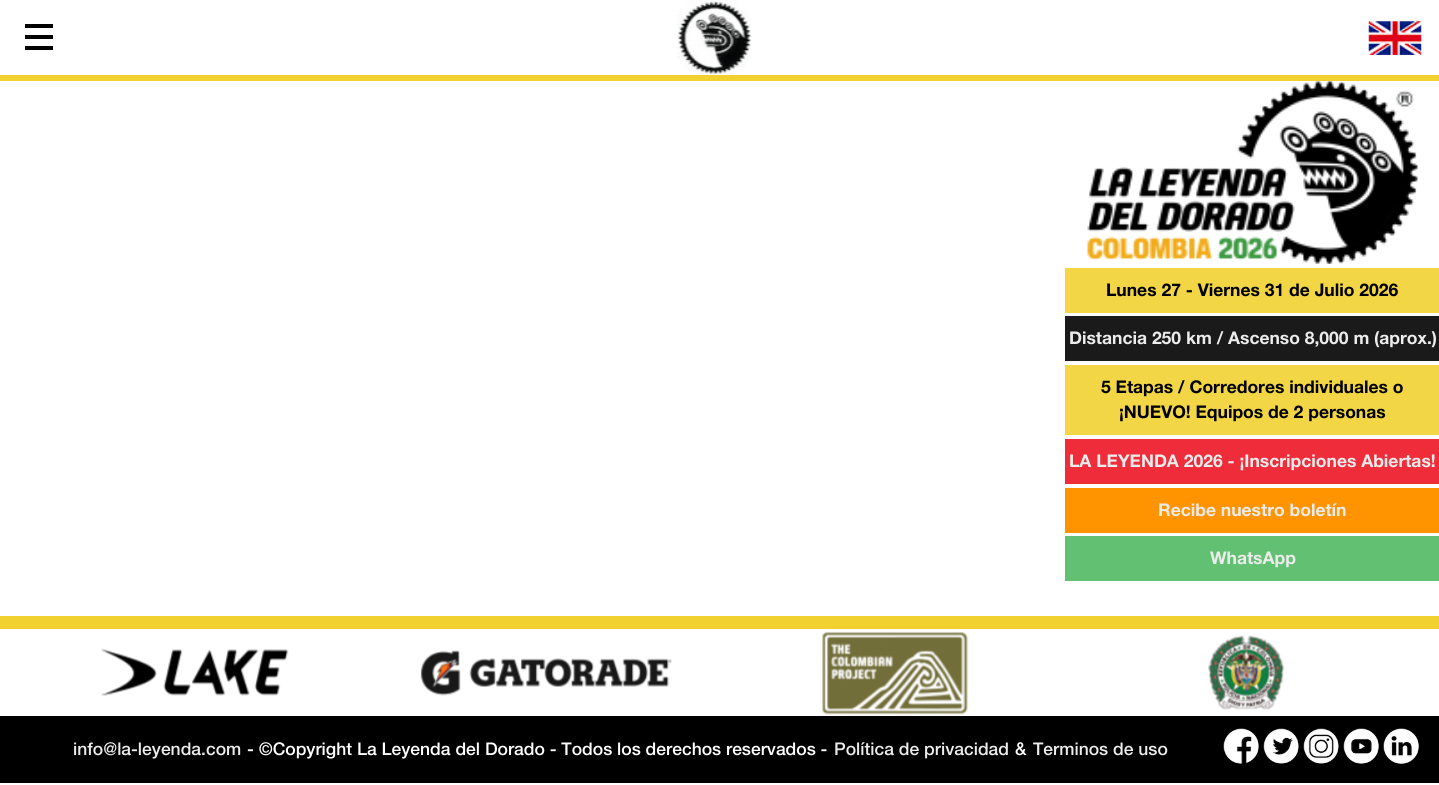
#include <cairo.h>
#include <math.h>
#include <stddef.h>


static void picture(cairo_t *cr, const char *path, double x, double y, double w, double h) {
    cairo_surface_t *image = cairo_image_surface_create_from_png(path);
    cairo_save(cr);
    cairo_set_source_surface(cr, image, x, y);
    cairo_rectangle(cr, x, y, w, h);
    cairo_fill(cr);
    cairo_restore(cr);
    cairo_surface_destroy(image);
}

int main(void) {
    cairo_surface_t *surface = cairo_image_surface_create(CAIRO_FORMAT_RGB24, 1439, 785);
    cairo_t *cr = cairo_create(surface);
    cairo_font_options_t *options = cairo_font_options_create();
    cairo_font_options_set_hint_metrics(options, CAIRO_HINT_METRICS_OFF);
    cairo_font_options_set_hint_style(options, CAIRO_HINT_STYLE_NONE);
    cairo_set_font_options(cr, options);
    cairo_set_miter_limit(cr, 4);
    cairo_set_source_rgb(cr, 1, 1, 1);
    cairo_paint(cr);
    cairo_set_source_rgb(cr, 0, 0, 0);
    cairo_rectangle(cr, 25, 24, 28, 4);
    cairo_fill(cr);
    cairo_rectangle(cr, 25, 35, 28, 4);
    cairo_fill(cr);
    cairo_rectangle(cr, 25, 46, 28, 4);
    cairo_fill(cr);
    picture(cr, "img1.png", 676, 0, 76, 75);
    picture(cr, "img2.png", 1368, 21, 54, 34);
    cairo_set_source_rgb(cr, 0.945, 0.82, 0.188);
    cairo_rectangle(cr, 0, 75, 1439, 6);
    cairo_fill(cr);
    picture(cr, "img3.png", 1087, 81, 331, 183);
    cairo_set_source_rgb(cr, 0.949, 0.839, 0.271);
    cairo_rectangle(cr, 1065, 268, 374, 45);
    cairo_fill(cr);
    cairo_select_font_face(cr, "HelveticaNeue", CAIRO_FONT_SLANT_NORMAL, CAIRO_FONT_WEIGHT_BOLD);
    cairo_set_font_size(cr, 17.5);
    cairo_set_source_rgb(cr, 0, 0, 0);
    cairo_move_to(cr, 1106, 296);
    cairo_show_text(cr, "Lunes 27 - Viernes 31 de Julio 2026");
    cairo_set_source_rgb(cr, 0.102, 0.102, 0.102);
    cairo_rectangle(cr, 1065, 316, 374, 45);
    cairo_fill(cr);
    cairo_set_source_rgb(cr, 0.922, 0.922, 0.922);
    cairo_move_to(cr, 1069, 344);
    cairo_show_text(cr, "Distancia 250 km / Ascenso 8,000 m (aprox.)");
    cairo_set_source_rgb(cr, 0.949, 0.839, 0.271);
    cairo_rectangle(cr, 1065, 365, 374, 70);
    cairo_fill(cr);
    cairo_set_source_rgb(cr, 0, 0, 0);
    cairo_move_to(cr, 1101, 393);
    cairo_show_text(cr, "5 Etapas / Corredores individuales o");
    cairo_move_to(cr, 1119, 418);
    cairo_show_text(cr, "¡NUEVO! Equipos de 2 personas");
    cairo_set_source_rgb(cr, 0.937, 0.173, 0.227);
    cairo_rectangle(cr, 1065, 439, 374, 45);
    cairo_fill(cr);
    cairo_set_source_rgb(cr, 0.922, 0.922, 0.922);
    cairo_move_to(cr, 1069, 467);
    cairo_show_text(cr, "LA LEYENDA 2026 - ¡Inscripciones Abiertas!");
    cairo_set_source_rgb(cr, 1, 0.576, 0);
    cairo_rectangle(cr, 1065, 488, 374, 45);
    cairo_fill(cr);
    cairo_set_source_rgb(cr, 0.922, 0.922, 0.922);
    cairo_move_to(cr, 1158, 516);
    cairo_show_text(cr, "Recibe nuestro boletín");
    cairo_set_source_rgb(cr, 0.384, 0.753, 0.451);
    cairo_rectangle(cr, 1065, 536, 374, 45);
    cairo_fill(cr);
    cairo_set_source_rgb(cr, 0.922, 0.922, 0.922);
    cairo_move_to(cr, 1210, 564);
    cairo_show_text(cr, "WhatsApp");
    cairo_set_source_rgb(cr, 0.945, 0.82, 0.188);
    cairo_rectangle(cr, 0, 616, 1439, 13);
    cairo_fill(cr);
    picture(cr, "img4.png", 101, 648, 188, 49);
    picture(cr, "img5.png", 420, 650, 252, 46);
    picture(cr, "img6.png", 822, 631, 147, 84);
    picture(cr, "img7.png", 1208, 635, 77, 75);
    cairo_set_source_rgb(cr, 0, 0, 0);
    cairo_rectangle(cr, 0, 716, 1439, 67);
    cairo_fill(cr);
    cairo_select_font_face(cr, "HelveticaNeue Medium", CAIRO_FONT_SLANT_NORMAL, CAIRO_FONT_WEIGHT_NORMAL);
    cairo_set_source_rgb(cr, 0.922, 0.922, 0.922);
    cairo_move_to(cr, 73, 755);
    cairo_show_text(cr, "info@la-leyenda.com");
    cairo_set_source_rgb(cr, 1, 1, 1);
    cairo_move_to(cr, 247, 755);
    cairo_show_text(cr, "- ©Copyright La Leyenda del Dorado - Todos los derechos reservados -");
    cairo_set_source_rgb(cr, 0.922, 0.922, 0.922);
    cairo_move_to(cr, 834, 755);
    cairo_show_text(cr, "Política de privacidad");
    cairo_set_source_rgb(cr, 1, 1, 1);
    cairo_move_to(cr, 1015, 755);
    cairo_show_text(cr, "&");
    cairo_set_source_rgb(cr, 0.922, 0.922, 0.922);
    cairo_move_to(cr, 1033, 755);
    cairo_show_text(cr, "Terminos de uso");
    picture(cr, "img8.png", 1223, 728, 36, 36);
    picture(cr, "img9.png", 1263, 728, 36, 36);
    picture(cr, "img10.png", 1303, 728, 36, 36);
    picture(cr, "img11.png", 1343, 728, 36, 36);
    picture(cr, "img12.png", 1383, 728, 36, 36);
    cairo_surface_write_to_png(surface, "page.png");
    cairo_font_options_destroy(options);
    cairo_destroy(cr);
    cairo_surface_destroy(surface);
    return 0;
}
